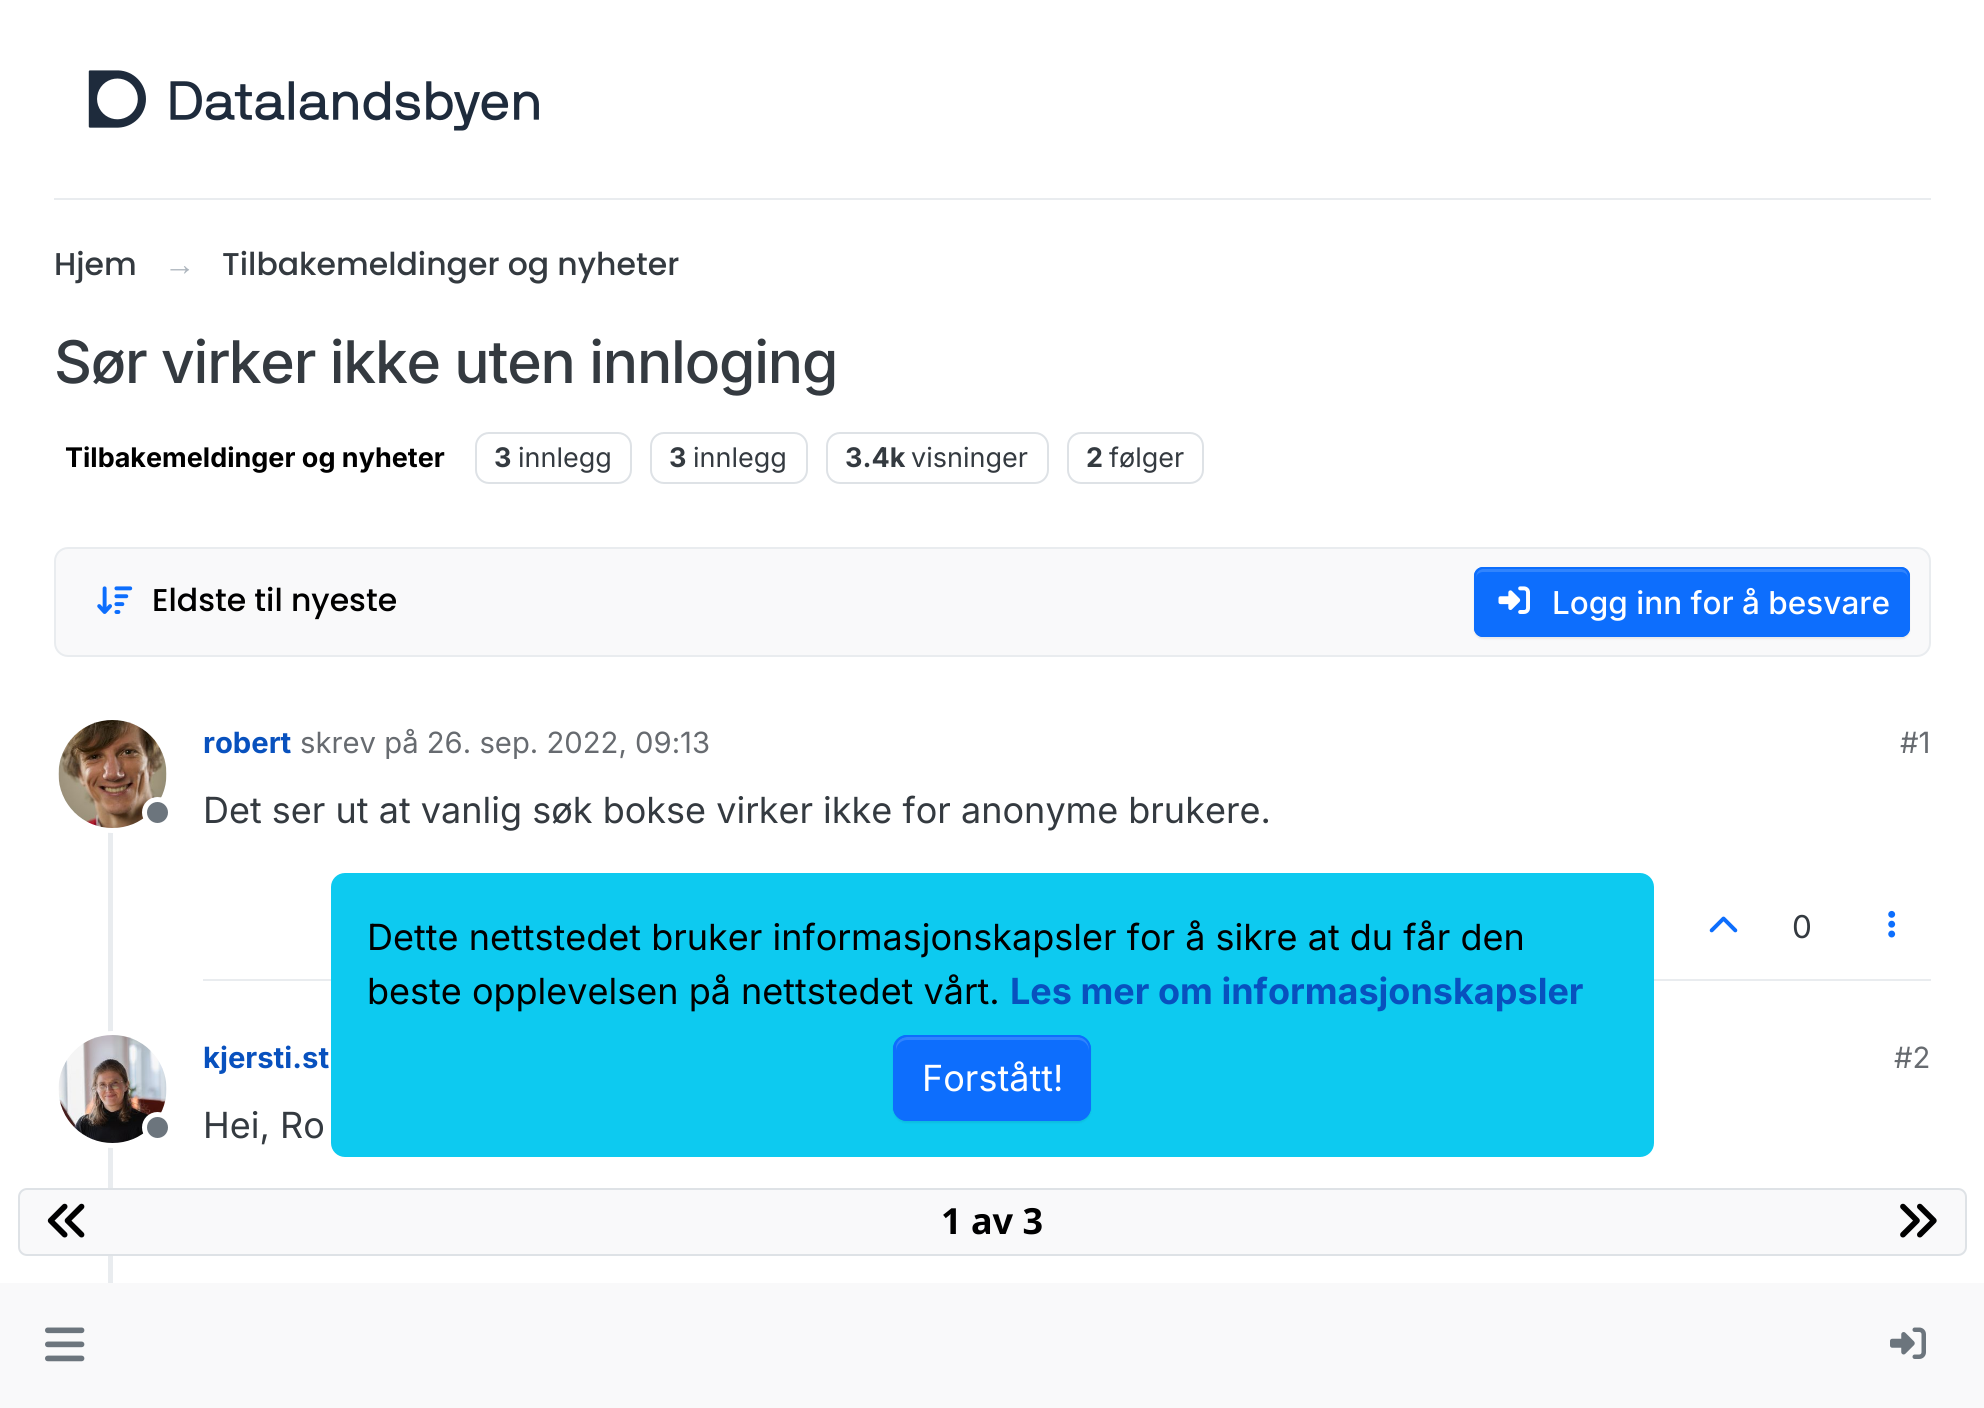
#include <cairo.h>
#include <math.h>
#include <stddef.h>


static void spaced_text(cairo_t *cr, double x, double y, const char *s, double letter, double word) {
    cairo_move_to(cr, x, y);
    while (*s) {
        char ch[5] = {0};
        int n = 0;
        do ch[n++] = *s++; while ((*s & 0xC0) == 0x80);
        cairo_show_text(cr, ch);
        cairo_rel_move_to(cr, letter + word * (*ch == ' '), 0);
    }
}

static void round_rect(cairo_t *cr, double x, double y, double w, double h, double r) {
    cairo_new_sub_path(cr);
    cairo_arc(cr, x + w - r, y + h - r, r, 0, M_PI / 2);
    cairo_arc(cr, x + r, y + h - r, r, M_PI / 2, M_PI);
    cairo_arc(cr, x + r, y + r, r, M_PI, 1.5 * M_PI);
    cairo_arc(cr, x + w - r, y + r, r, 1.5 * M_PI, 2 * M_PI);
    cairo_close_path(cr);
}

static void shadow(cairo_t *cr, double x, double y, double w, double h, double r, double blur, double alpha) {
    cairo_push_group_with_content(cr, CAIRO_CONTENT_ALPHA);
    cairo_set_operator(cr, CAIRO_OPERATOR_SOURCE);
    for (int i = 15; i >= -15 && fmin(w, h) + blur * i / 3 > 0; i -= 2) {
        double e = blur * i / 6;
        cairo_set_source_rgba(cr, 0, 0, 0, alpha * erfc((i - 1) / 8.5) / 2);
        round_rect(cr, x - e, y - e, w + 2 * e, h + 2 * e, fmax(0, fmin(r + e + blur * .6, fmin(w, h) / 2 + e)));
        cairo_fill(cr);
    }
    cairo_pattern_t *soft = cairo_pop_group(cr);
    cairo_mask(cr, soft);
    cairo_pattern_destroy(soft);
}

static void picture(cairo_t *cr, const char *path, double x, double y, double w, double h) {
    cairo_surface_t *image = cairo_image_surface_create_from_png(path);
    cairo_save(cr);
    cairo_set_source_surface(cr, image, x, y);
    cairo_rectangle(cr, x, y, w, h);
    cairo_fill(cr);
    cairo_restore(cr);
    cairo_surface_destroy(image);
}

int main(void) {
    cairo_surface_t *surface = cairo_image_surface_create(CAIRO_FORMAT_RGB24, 1984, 1408);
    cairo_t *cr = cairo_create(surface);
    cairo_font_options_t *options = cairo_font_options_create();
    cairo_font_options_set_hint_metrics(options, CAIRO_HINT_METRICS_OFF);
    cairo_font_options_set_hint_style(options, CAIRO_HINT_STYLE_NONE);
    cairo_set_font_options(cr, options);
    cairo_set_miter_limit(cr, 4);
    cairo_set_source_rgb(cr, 1, 1, 1);
    cairo_paint(cr);
    cairo_set_source_rgb(cr, 0.914, 0.925, 0.937);
    cairo_rectangle(cr, 54, 198, 1877, 2);
    cairo_fill(cr);
    picture(cr, "img1.png", 88, 70, 451, 61);
    cairo_select_font_face(cr, "Poppins Medium", CAIRO_FONT_SLANT_NORMAL, CAIRO_FONT_WEIGHT_NORMAL);
    cairo_set_font_size(cr, 31.5);
    cairo_set_source_rgb(cr, 0.204, 0.227, 0.251);
    cairo_move_to(cr, 54, 275);
    cairo_show_text(cr, "Hjem");
    cairo_select_font_face(cr, "Liberation Sans", CAIRO_FONT_SLANT_NORMAL, CAIRO_FONT_WEIGHT_NORMAL);
    cairo_set_source_rgb(cr, 0.678, 0.71, 0.741);
    cairo_move_to(cr, 164, 275);
    cairo_show_text(cr, "→");
    cairo_select_font_face(cr, "Poppins Medium", CAIRO_FONT_SLANT_NORMAL, CAIRO_FONT_WEIGHT_NORMAL);
    cairo_set_source_rgb(cr, 0.204, 0.227, 0.251);
    cairo_move_to(cr, 222, 275);
    cairo_show_text(cr, "Tilbakemeldinger og nyheter");
    cairo_select_font_face(cr, "Inter Medium", CAIRO_FONT_SLANT_NORMAL, CAIRO_FONT_WEIGHT_NORMAL);
    cairo_set_font_size(cr, 58.75);
    spaced_text(cr, 54, 383, "Sør virker ikke uten innloging", -1.2, 0);
    cairo_select_font_face(cr, "Inter", CAIRO_FONT_SLANT_NORMAL, CAIRO_FONT_WEIGHT_BOLD);
    cairo_set_font_size(cr, 27);
    cairo_set_source_rgb(cr, 0, 0, 0);
    cairo_move_to(cr, 65, 467);
    cairo_show_text(cr, "Tilbakemeldinger og nyheter");
    round_rect(cr, 476, 433, 155, 50, 13);
    cairo_set_source_rgb(cr, 0.871, 0.886, 0.902);
    cairo_stroke(cr);
    cairo_set_source_rgb(cr, 0.204, 0.227, 0.251);
    cairo_move_to(cr, 494, 467);
    cairo_show_text(cr, "3");
    cairo_select_font_face(cr, "Inter", CAIRO_FONT_SLANT_NORMAL, CAIRO_FONT_WEIGHT_NORMAL);
    cairo_move_to(cr, 518, 467);
    cairo_show_text(cr, "innlegg");
    round_rect(cr, 651, 433, 156, 50, 13);
    cairo_set_source_rgb(cr, 0.871, 0.886, 0.902);
    cairo_stroke(cr);
    cairo_select_font_face(cr, "Inter", CAIRO_FONT_SLANT_NORMAL, CAIRO_FONT_WEIGHT_BOLD);
    cairo_set_source_rgb(cr, 0.204, 0.227, 0.251);
    cairo_move_to(cr, 669, 467);
    cairo_show_text(cr, "3");
    cairo_select_font_face(cr, "Inter", CAIRO_FONT_SLANT_NORMAL, CAIRO_FONT_WEIGHT_NORMAL);
    cairo_move_to(cr, 693, 467);
    cairo_show_text(cr, "innlegg");
    round_rect(cr, 827, 433, 221, 50, 13);
    cairo_set_source_rgb(cr, 0.871, 0.886, 0.902);
    cairo_stroke(cr);
    cairo_select_font_face(cr, "Inter", CAIRO_FONT_SLANT_NORMAL, CAIRO_FONT_WEIGHT_BOLD);
    cairo_set_source_rgb(cr, 0.204, 0.227, 0.251);
    cairo_move_to(cr, 845, 467);
    cairo_show_text(cr, "3.4k");
    cairo_select_font_face(cr, "Inter", CAIRO_FONT_SLANT_NORMAL, CAIRO_FONT_WEIGHT_NORMAL);
    cairo_move_to(cr, 911, 467);
    cairo_show_text(cr, "visninger");
    round_rect(cr, 1068, 433, 135, 50, 13);
    cairo_set_source_rgb(cr, 0.871, 0.886, 0.902);
    cairo_stroke(cr);
    cairo_select_font_face(cr, "Inter", CAIRO_FONT_SLANT_NORMAL, CAIRO_FONT_WEIGHT_BOLD);
    cairo_set_source_rgb(cr, 0.204, 0.227, 0.251);
    cairo_move_to(cr, 1086, 467);
    cairo_show_text(cr, "2");
    cairo_select_font_face(cr, "Inter", CAIRO_FONT_SLANT_NORMAL, CAIRO_FONT_WEIGHT_NORMAL);
    cairo_move_to(cr, 1109, 467);
    cairo_show_text(cr, "følger");
    cairo_set_source_rgb(cr, 0.973, 0.976, 0.98);
    round_rect(cr, 55, 548, 1875, 108, 13);
    cairo_fill_preserve(cr);
    cairo_set_source_rgb(cr, 0.914, 0.925, 0.937);
    cairo_stroke(cr);
    picture(cr, "img2.png", 97, 586, 36, 28);
    cairo_select_font_face(cr, "Poppins Medium", CAIRO_FONT_SLANT_NORMAL, CAIRO_FONT_WEIGHT_NORMAL);
    cairo_set_font_size(cr, 31.5);
    cairo_set_source_rgb(cr, 0, 0, 0);
    cairo_move_to(cr, 152, 611);
    cairo_show_text(cr, "Eldste til nyeste");
    cairo_set_source_rgb(cr, 0, 0, 0);
    shadow(cr, 1474, 569, 436, 70, 9, 1, 0.07);
    cairo_set_source_rgb(cr, 0.051, 0.431, 0.992);
    round_rect(cr, 1474, 567, 436, 70, 9);
    cairo_fill(cr);
    cairo_set_source_rgb(cr, 0.192, 0.518, 0.992);
    cairo_new_path(cr);
    cairo_move_to(cr, 1483, 572);
    cairo_line_to(cr, 1901, 572);
    cairo_curve_to(cr, 1905, 572, 1908, 575, 1908, 578);
    cairo_curve_to(cr, 1908, 574, 1906, 569, 1901, 569);
    cairo_line_to(cr, 1483, 569);
    cairo_curve_to(cr, 1478, 569, 1476, 574, 1476, 578);
    cairo_curve_to(cr, 1476, 575, 1479, 572, 1483, 572);
    cairo_close_path(cr);
    cairo_fill(cr);
    round_rect(cr, 1475, 568, 434, 68, 8);
    cairo_set_source_rgb(cr, 0.051, 0.431, 0.992);
    cairo_stroke(cr);
    picture(cr, "img3.png", 1498, 586, 32, 28);
    cairo_select_font_face(cr, "Inter Medium", CAIRO_FONT_SLANT_NORMAL, CAIRO_FONT_WEIGHT_NORMAL);
    cairo_set_source_rgb(cr, 1, 1, 1);
    cairo_move_to(cr, 1552, 614);
    cairo_show_text(cr, "Logg inn for å besvare");
    cairo_set_source_rgb(cr, 0.914, 0.925, 0.937);
    cairo_rectangle(cr, 108, 827, 5, 456);
    cairo_fill(cr);
    cairo_arc(cr, 112.5, 774.5, 56, 0, 2 * M_PI);
    cairo_set_source_rgb(cr, 1, 1, 1);
    cairo_set_line_width(cr, 5);
    cairo_stroke(cr);
    picture(cr, "img4.png", 58, 720, 109, 108);
    cairo_set_source_rgb(cr, 0.424, 0.459, 0.49);
    cairo_arc(cr, 157.5, 812.5, 13, 0, 2 * M_PI);
    cairo_fill_preserve(cr);
    cairo_set_source_rgb(cr, 1, 1, 1);
    cairo_stroke(cr);
    cairo_select_font_face(cr, "Inter", CAIRO_FONT_SLANT_NORMAL, CAIRO_FONT_WEIGHT_BOLD);
    cairo_set_font_size(cr, 29.25);
    cairo_set_source_rgb(cr, 0.035, 0.318, 0.745);
    cairo_move_to(cr, 203, 753);
    cairo_show_text(cr, "robert");
    cairo_select_font_face(cr, "Inter", CAIRO_FONT_SLANT_NORMAL, CAIRO_FONT_WEIGHT_NORMAL);
    cairo_set_source_rgb(cr, 0.404, 0.42, 0.439);
    cairo_move_to(cr, 300, 753);
    cairo_show_text(cr, "skrev på 26. sep. 2022, 09:13");
    cairo_move_to(cr, 1900, 753);
    cairo_show_text(cr, "#1");
    cairo_set_font_size(cr, 36);
    cairo_set_source_rgb(cr, 0.204, 0.227, 0.251);
    cairo_move_to(cr, 203, 823);
    cairo_show_text(cr, "Det ser ut at vanlig søk bokse virker ikke for anonyme brukere.");
    cairo_set_source_rgb(cr, 0.914, 0.925, 0.937);
    cairo_rectangle(cr, 203, 979, 1728, 2);
    cairo_fill(cr);
    picture(cr, "img5.png", 1709, 916, 29, 17);
    cairo_set_font_size(cr, 31.5);
    cairo_set_source_rgb(cr, 0.204, 0.227, 0.251);
    cairo_move_to(cr, 1792, 938);
    cairo_show_text(cr, "0");
    picture(cr, "img6.png", 1888, 910, 8, 28);
    cairo_arc(cr, 112.5, 1089.5, 56, 0, 2 * M_PI);
    cairo_set_source_rgb(cr, 1, 1, 1);
    cairo_stroke(cr);
    picture(cr, "img7.png", 58, 1035, 109, 108);
    cairo_set_source_rgb(cr, 0.424, 0.459, 0.49);
    cairo_arc(cr, 157.5, 1127.5, 13, 0, 2 * M_PI);
    cairo_fill_preserve(cr);
    cairo_set_source_rgb(cr, 1, 1, 1);
    cairo_stroke(cr);
    cairo_select_font_face(cr, "Inter", CAIRO_FONT_SLANT_NORMAL, CAIRO_FONT_WEIGHT_BOLD);
    cairo_set_font_size(cr, 29.25);
    cairo_set_source_rgb(cr, 0.035, 0.318, 0.745);
    cairo_move_to(cr, 203, 1068);
    cairo_show_text(cr, "kjersti.st");
    cairo_select_font_face(cr, "Inter", CAIRO_FONT_SLANT_NORMAL, CAIRO_FONT_WEIGHT_NORMAL);
    cairo_set_source_rgb(cr, 0.404, 0.42, 0.439);
    cairo_move_to(cr, 1894, 1068);
    cairo_show_text(cr, "#2");
    cairo_set_font_size(cr, 36);
    cairo_set_source_rgb(cr, 0.204, 0.227, 0.251);
    cairo_move_to(cr, 203, 1138);
    cairo_show_text(cr, "Hei, Ro");
    cairo_set_source_rgb(cr, 0.051, 0.792, 0.941);
    round_rect(cr, 331, 873, 1323, 284, 14);
    cairo_fill(cr);
    cairo_set_source_rgb(cr, 0, 0, 0);
    cairo_move_to(cr, 367, 950);
    cairo_show_text(cr, "Dette nettstedet bruker informasjonskapsler for å sikre at du får den");
    cairo_move_to(cr, 367, 1004);
    cairo_show_text(cr, "beste opplevelsen på nettstedet vårt.");
    cairo_select_font_face(cr, "Inter", CAIRO_FONT_SLANT_NORMAL, CAIRO_FONT_WEIGHT_BOLD);
    cairo_set_source_rgb(cr, 0.035, 0.318, 0.745);
    cairo_move_to(cr, 1010, 1004);
    cairo_show_text(cr, "Les mer om informasjonskapsler");
    cairo_set_source_rgb(cr, 0, 0, 0);
    shadow(cr, 893, 1037, 198, 86, 14, 1, 0.07);
    cairo_set_source_rgb(cr, 0.051, 0.431, 0.992);
    round_rect(cr, 893, 1035, 198, 86, 14);
    cairo_fill(cr);
    cairo_set_source_rgb(cr, 0.192, 0.518, 0.992);
    cairo_new_path(cr);
    cairo_move_to(cr, 907, 1040);
    cairo_line_to(cr, 1078, 1040);
    cairo_curve_to(cr, 1084, 1040, 1089, 1045, 1089, 1051);
    cairo_line_to(cr, 1089, 1048);
    cairo_curve_to(cr, 1089, 1042, 1084, 1037, 1078, 1037);
    cairo_line_to(cr, 907, 1037);
    cairo_curve_to(cr, 901, 1037, 896, 1042, 896, 1048);
    cairo_line_to(cr, 896, 1051);
    cairo_curve_to(cr, 896, 1045, 901, 1040, 907, 1040);
    cairo_close_path(cr);
    cairo_fill(cr);
    round_rect(cr, 894, 1036, 196, 84, 13);
    cairo_set_source_rgb(cr, 0.051, 0.431, 0.992);
    cairo_set_line_width(cr, 2);
    cairo_stroke(cr);
    cairo_select_font_face(cr, "Inter", CAIRO_FONT_SLANT_NORMAL, CAIRO_FONT_WEIGHT_NORMAL);
    cairo_set_source_rgb(cr, 1, 1, 1);
    cairo_move_to(cr, 922, 1091);
    cairo_show_text(cr, "Forstått!");
    cairo_set_source_rgb(cr, 0.973, 0.976, 0.98);
    round_rect(cr, 19, 1189, 1947, 66, 8);
    cairo_fill_preserve(cr);
    cairo_set_source_rgb(cr, 0.871, 0.886, 0.902);
    cairo_stroke(cr);
    picture(cr, "img8.png", 47, 1203, 38, 35);
    cairo_select_font_face(cr, "Noto Sans", CAIRO_FONT_SLANT_NORMAL, CAIRO_FONT_WEIGHT_BOLD);
    cairo_set_source_rgb(cr, 0, 0, 0);
    cairo_move_to(cr, 941, 1234);
    cairo_show_text(cr, "1 av 3");
    picture(cr, "img9.png", 1900, 1203, 37, 35);
    cairo_set_source_rgb(cr, 0.973, 0.976, 0.98);
    cairo_rectangle(cr, 0, 1283, 1984, 125);
    cairo_fill(cr);
    picture(cr, "img10.png", 45, 1327, 40, 35);
    picture(cr, "img11.png", 1890, 1327, 36, 32);
    cairo_surface_write_to_png(surface, "page.png");
    cairo_font_options_destroy(options);
    cairo_destroy(cr);
    cairo_surface_destroy(surface);
    return 0;
}
